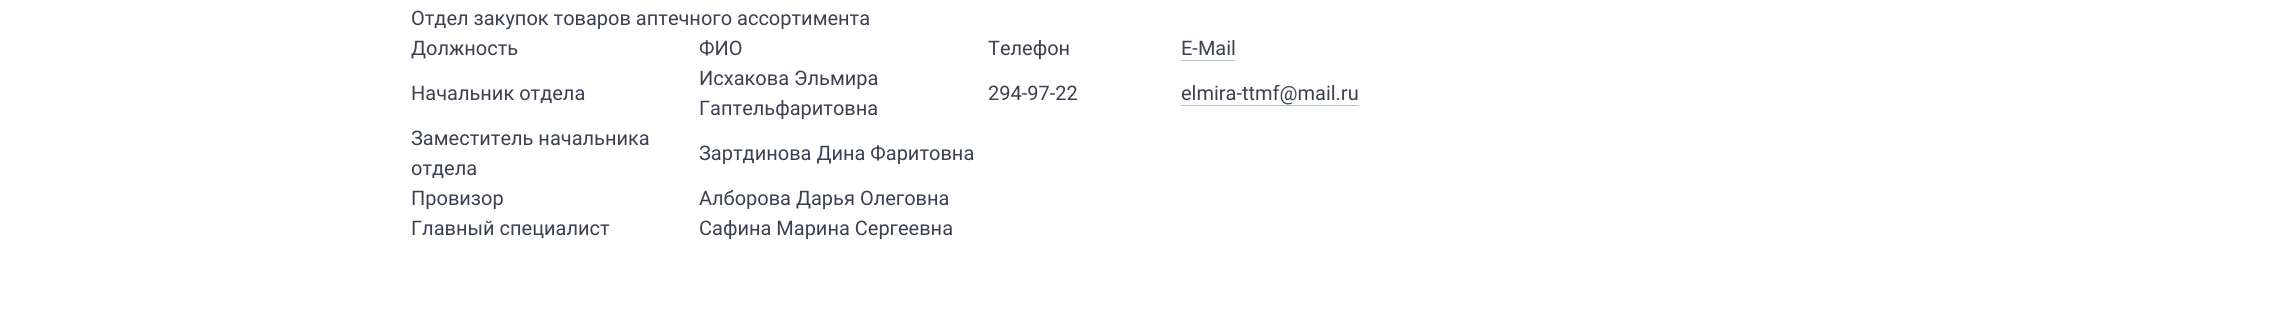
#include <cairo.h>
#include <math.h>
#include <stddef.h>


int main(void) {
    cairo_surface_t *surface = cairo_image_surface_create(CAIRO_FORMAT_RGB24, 2283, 315);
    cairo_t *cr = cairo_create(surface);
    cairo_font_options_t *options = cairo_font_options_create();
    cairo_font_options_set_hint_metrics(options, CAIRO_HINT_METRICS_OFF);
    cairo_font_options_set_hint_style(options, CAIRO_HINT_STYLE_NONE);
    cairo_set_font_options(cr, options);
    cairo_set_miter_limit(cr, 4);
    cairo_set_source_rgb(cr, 1, 1, 1);
    cairo_paint(cr);
    cairo_select_font_face(cr, "Roboto", CAIRO_FONT_SLANT_NORMAL, CAIRO_FONT_WEIGHT_NORMAL);
    cairo_set_font_size(cr, 20);
    cairo_set_source_rgb(cr, 0.235, 0.251, 0.322);
    cairo_move_to(cr, 411, 25);
    cairo_show_text(cr, "Отдел закупок товаров аптечного ассортимента");
    cairo_move_to(cr, 411, 55);
    cairo_show_text(cr, "Должность");
    cairo_move_to(cr, 699, 55);
    cairo_show_text(cr, "ФИО");
    cairo_move_to(cr, 988, 55);
    cairo_show_text(cr, "Телефон");
    cairo_move_to(cr, 1181, 55);
    cairo_show_text(cr, "E-Mail");
    cairo_set_source_rgb(cr, 0.714, 0.776, 0.757);
    cairo_rectangle(cr, 1181, 60, 54, 1);
    cairo_fill(cr);
    cairo_set_source_rgb(cr, 0.235, 0.251, 0.322);
    cairo_move_to(cr, 411, 100);
    cairo_show_text(cr, "Начальник отдела");
    cairo_move_to(cr, 699, 85);
    cairo_show_text(cr, "Исхакова Эльмира");
    cairo_move_to(cr, 699, 115);
    cairo_show_text(cr, "Гаптельфаритовна");
    cairo_move_to(cr, 988, 100);
    cairo_show_text(cr, "294-97-22");
    cairo_move_to(cr, 1181, 100);
    cairo_show_text(cr, "elmira-ttmf@mail.ru");
    cairo_set_source_rgb(cr, 0.714, 0.776, 0.757);
    cairo_rectangle(cr, 1181, 105, 178, 1);
    cairo_fill(cr);
    cairo_set_source_rgb(cr, 0.235, 0.251, 0.322);
    cairo_move_to(cr, 411, 145);
    cairo_show_text(cr, "Заместитель начальника");
    cairo_move_to(cr, 411, 175);
    cairo_show_text(cr, "отдела");
    cairo_move_to(cr, 699, 160);
    cairo_show_text(cr, "Зартдинова Дина Фаритовна");
    cairo_move_to(cr, 411, 205);
    cairo_show_text(cr, "Провизор");
    cairo_move_to(cr, 699, 205);
    cairo_show_text(cr, "Алборова Дарья Олеговна");
    cairo_move_to(cr, 411, 235);
    cairo_show_text(cr, "Главный специалист");
    cairo_move_to(cr, 699, 235);
    cairo_show_text(cr, "Сафина Марина Сергеевна");
    cairo_surface_write_to_png(surface, "page.png");
    cairo_font_options_destroy(options);
    cairo_destroy(cr);
    cairo_surface_destroy(surface);
    return 0;
}
